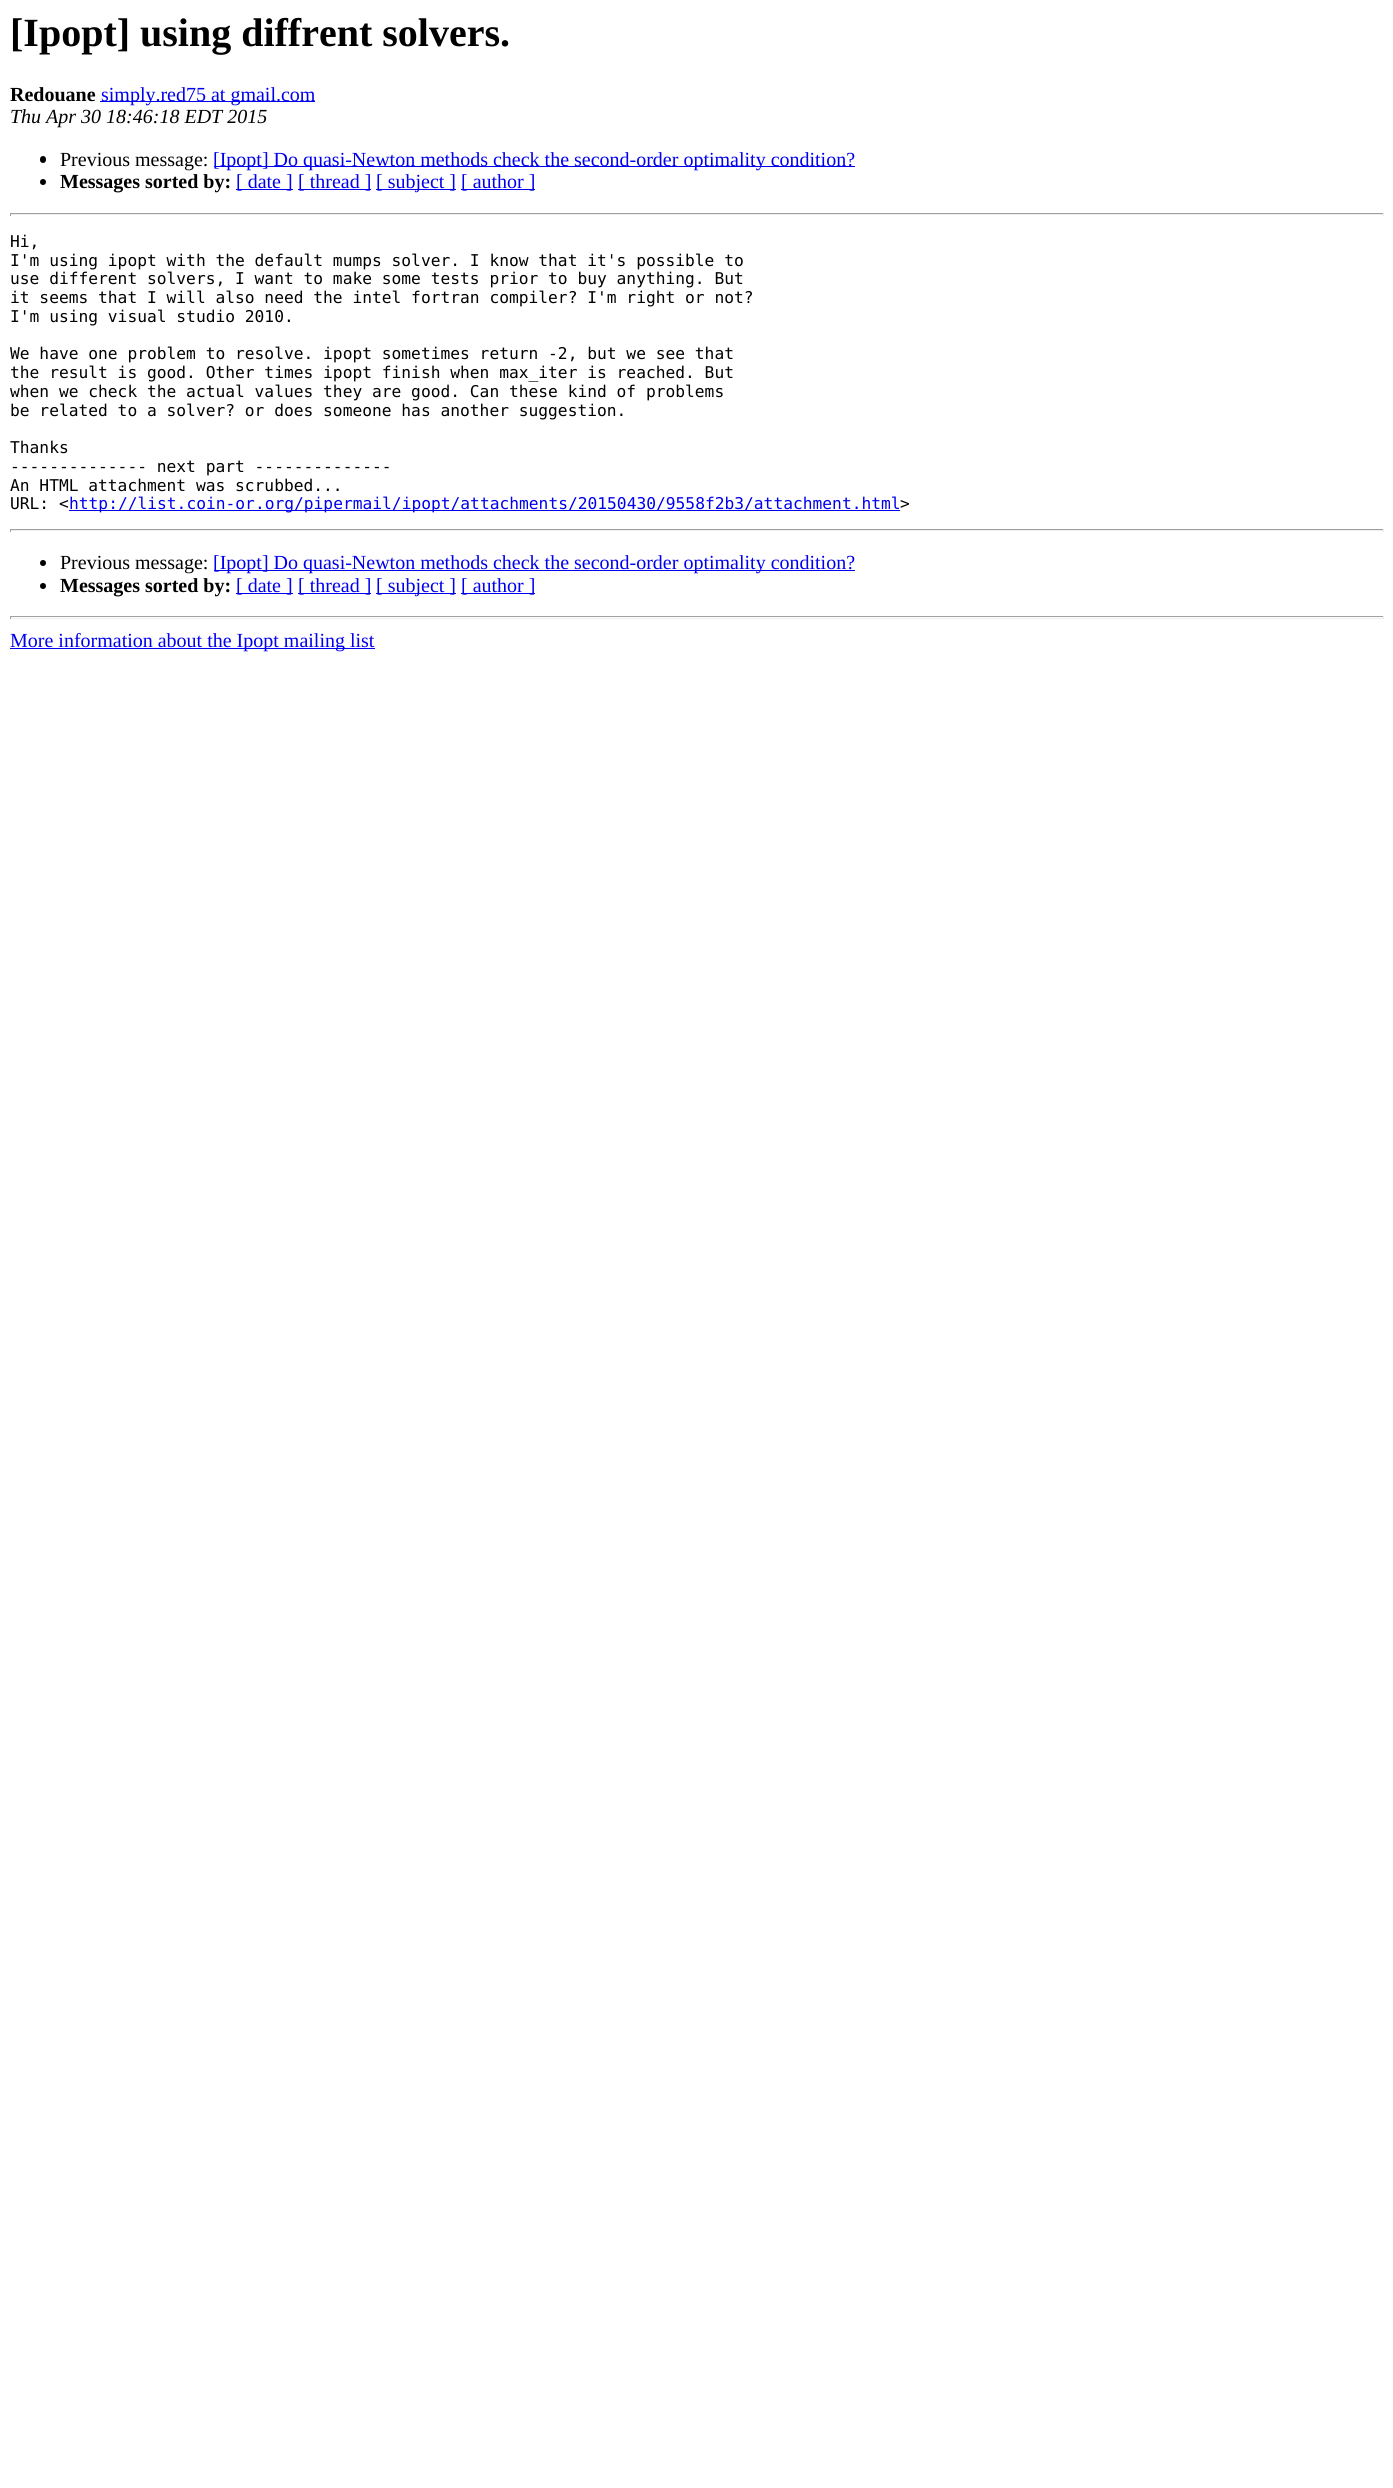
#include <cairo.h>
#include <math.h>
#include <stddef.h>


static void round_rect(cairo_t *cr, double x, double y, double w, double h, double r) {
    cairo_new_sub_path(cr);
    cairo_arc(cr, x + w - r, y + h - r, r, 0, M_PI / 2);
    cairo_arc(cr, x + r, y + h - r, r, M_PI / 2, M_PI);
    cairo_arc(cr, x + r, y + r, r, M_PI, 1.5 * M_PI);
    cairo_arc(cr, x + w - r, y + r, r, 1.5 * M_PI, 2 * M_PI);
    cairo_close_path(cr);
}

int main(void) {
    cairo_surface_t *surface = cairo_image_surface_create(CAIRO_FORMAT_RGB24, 1393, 2488);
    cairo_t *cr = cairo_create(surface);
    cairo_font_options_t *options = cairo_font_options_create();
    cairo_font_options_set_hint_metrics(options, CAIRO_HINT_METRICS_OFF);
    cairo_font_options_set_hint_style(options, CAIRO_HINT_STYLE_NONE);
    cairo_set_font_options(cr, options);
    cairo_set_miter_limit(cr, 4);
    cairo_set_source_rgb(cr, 1, 1, 1);
    cairo_paint(cr);
    cairo_select_font_face(cr, "Liberation Serif", CAIRO_FONT_SLANT_NORMAL, CAIRO_FONT_WEIGHT_BOLD);
    cairo_set_font_size(cr, 40);
    cairo_set_source_rgb(cr, 0, 0, 0);
    cairo_move_to(cr, 10, 46);
    cairo_show_text(cr, "[Ipopt] using diffrent solvers.");
    cairo_set_font_size(cr, 20);
    cairo_move_to(cr, 10, 101);
    cairo_show_text(cr, "Redouane");
    cairo_set_source_rgb(cr, 0, 0, 0.933);
    cairo_rectangle(cr, 100, 101, 215, 1);
    cairo_fill(cr);
    cairo_select_font_face(cr, "Liberation Serif", CAIRO_FONT_SLANT_NORMAL, CAIRO_FONT_WEIGHT_NORMAL);
    cairo_move_to(cr, 101, 101);
    cairo_show_text(cr, "simply.red75 at gmail.com");
    cairo_select_font_face(cr, "Liberation Serif", CAIRO_FONT_SLANT_ITALIC, CAIRO_FONT_WEIGHT_NORMAL);
    cairo_set_source_rgb(cr, 0, 0, 0);
    cairo_move_to(cr, 10, 123);
    cairo_show_text(cr, "Thu Apr 30 18:46:18 EDT 2015");
    round_rect(cr, 40, 156, 6, 7, 3);
    cairo_fill(cr);
    cairo_select_font_face(cr, "Liberation Serif", CAIRO_FONT_SLANT_NORMAL, CAIRO_FONT_WEIGHT_NORMAL);
    cairo_move_to(cr, 60, 166);
    cairo_show_text(cr, "Previous message:");
    cairo_set_source_rgb(cr, 0, 0, 0.933);
    cairo_rectangle(cr, 214, 166, 641, 1);
    cairo_fill(cr);
    cairo_move_to(cr, 213, 166);
    cairo_show_text(cr, "[Ipopt] Do quasi-Newton methods check the second-order optimality condition?");
    cairo_set_source_rgb(cr, 0, 0, 0);
    cairo_new_path(cr);
    cairo_arc(cr, 43, 182, 3, 0, 2 * M_PI);
    cairo_fill(cr);
    cairo_select_font_face(cr, "Liberation Serif", CAIRO_FONT_SLANT_NORMAL, CAIRO_FONT_WEIGHT_BOLD);
    cairo_move_to(cr, 60, 188);
    cairo_show_text(cr, "Messages sorted by:");
    cairo_set_source_rgb(cr, 0, 0, 0.933);
    cairo_rectangle(cr, 236, 189, 57, 1);
    cairo_fill(cr);
    cairo_select_font_face(cr, "Liberation Serif", CAIRO_FONT_SLANT_NORMAL, CAIRO_FONT_WEIGHT_NORMAL);
    cairo_move_to(cr, 236, 188);
    cairo_show_text(cr, "[ date ]");
    cairo_rectangle(cr, 298, 189, 73, 1);
    cairo_fill(cr);
    cairo_move_to(cr, 298, 188);
    cairo_show_text(cr, "[ thread ]");
    cairo_rectangle(cr, 376, 189, 80, 1);
    cairo_fill(cr);
    cairo_move_to(cr, 376, 188);
    cairo_show_text(cr, "[ subject ]");
    cairo_rectangle(cr, 461, 189, 74, 1);
    cairo_fill(cr);
    cairo_move_to(cr, 461, 188);
    cairo_show_text(cr, "[ author ]");
    cairo_set_source_rgb(cr, 0.624, 0.624, 0.624);
    cairo_rectangle(cr, 10, 213, 1374, 1);
    cairo_fill(cr);
    cairo_set_source_rgb(cr, 0.933, 0.933, 0.933);
    cairo_rectangle(cr, 1383, 213, 1, 3);
    cairo_fill(cr);
    cairo_rectangle(cr, 10, 214, 1374, 1);
    cairo_fill(cr);
    cairo_set_source_rgb(cr, 0.624, 0.624, 0.624);
    cairo_rectangle(cr, 10, 213, 1, 3);
    cairo_fill(cr);
    cairo_select_font_face(cr, "DejaVu Sans Mono", CAIRO_FONT_SLANT_NORMAL, CAIRO_FONT_WEIGHT_NORMAL);
    cairo_set_font_size(cr, 16.25);
    cairo_set_source_rgb(cr, 0, 0, 0);
    cairo_move_to(cr, 10, 247);
    cairo_show_text(cr, "Hi,");
    cairo_move_to(cr, 10, 266);
    cairo_show_text(cr, "I'm using ipopt with the default mumps solver. I know that it's possible to");
    cairo_move_to(cr, 10, 284);
    cairo_show_text(cr, "use different solvers, I want to make some tests prior to buy anything. But");
    cairo_move_to(cr, 10, 303);
    cairo_show_text(cr, "it seems that I will also need the intel fortran compiler? I'm right or not?");
    cairo_move_to(cr, 10, 322);
    cairo_show_text(cr, "I'm using visual studio 2010.");
    cairo_move_to(cr, 10, 359);
    cairo_show_text(cr, "We have one problem to resolve. ipopt sometimes return -2, but we see that");
    cairo_move_to(cr, 10, 378);
    cairo_show_text(cr, "the result is good. Other times ipopt finish when max_iter is reached. But");
    cairo_move_to(cr, 10, 397);
    cairo_show_text(cr, "when we check the actual values they are good. Can these kind of problems");
    cairo_move_to(cr, 10, 416);
    cairo_show_text(cr, "be related to a solver? or does someone has another suggestion.");
    cairo_move_to(cr, 10, 453);
    cairo_show_text(cr, "Thanks");
    cairo_move_to(cr, 10, 472);
    cairo_show_text(cr, "-------------- next part --------------");
    cairo_move_to(cr, 10, 491);
    cairo_show_text(cr, "An HTML attachment was scrubbed...");
    cairo_move_to(cr, 10, 509);
    cairo_show_text(cr, "URL: <");
    cairo_set_source_rgb(cr, 0, 0, 0.933);
    cairo_rectangle(cr, 69, 510, 831, 1);
    cairo_fill(cr);
    cairo_move_to(cr, 69, 509);
    cairo_show_text(cr, "http://list.coin-or.org/pipermail/ipopt/attachments/20150430/9558f2b3/attachment.html");
    cairo_set_source_rgb(cr, 0, 0, 0);
    cairo_move_to(cr, 900, 509);
    cairo_show_text(cr, ">");
    cairo_set_source_rgb(cr, 0.624, 0.624, 0.624);
    cairo_rectangle(cr, 10, 529, 1374, 1);
    cairo_fill(cr);
    cairo_set_source_rgb(cr, 0.933, 0.933, 0.933);
    cairo_rectangle(cr, 1383, 529, 1, 3);
    cairo_fill(cr);
    cairo_rectangle(cr, 10, 530, 1374, 1);
    cairo_fill(cr);
    cairo_set_source_rgb(cr, 0.624, 0.624, 0.624);
    cairo_rectangle(cr, 10, 529, 1, 3);
    cairo_fill(cr);
    cairo_set_source_rgb(cr, 0, 0, 0);
    cairo_arc(cr, 43, 563, 3, 0, 2 * M_PI);
    cairo_fill(cr);
    cairo_select_font_face(cr, "Liberation Serif", CAIRO_FONT_SLANT_NORMAL, CAIRO_FONT_WEIGHT_NORMAL);
    cairo_set_font_size(cr, 20);
    cairo_move_to(cr, 60, 569);
    cairo_show_text(cr, "Previous message:");
    cairo_set_source_rgb(cr, 0, 0, 0.933);
    cairo_rectangle(cr, 214, 570, 641, 1);
    cairo_fill(cr);
    cairo_move_to(cr, 213, 569);
    cairo_show_text(cr, "[Ipopt] Do quasi-Newton methods check the second-order optimality condition?");
    cairo_set_source_rgb(cr, 0, 0, 0);
    cairo_new_path(cr);
    cairo_arc(cr, 43, 586, 3, 0, 2 * M_PI);
    cairo_fill(cr);
    cairo_select_font_face(cr, "Liberation Serif", CAIRO_FONT_SLANT_NORMAL, CAIRO_FONT_WEIGHT_BOLD);
    cairo_move_to(cr, 60, 592);
    cairo_show_text(cr, "Messages sorted by:");
    cairo_set_source_rgb(cr, 0, 0, 0.933);
    cairo_rectangle(cr, 236, 593, 57, 1);
    cairo_fill(cr);
    cairo_select_font_face(cr, "Liberation Serif", CAIRO_FONT_SLANT_NORMAL, CAIRO_FONT_WEIGHT_NORMAL);
    cairo_move_to(cr, 236, 592);
    cairo_show_text(cr, "[ date ]");
    cairo_rectangle(cr, 298, 593, 73, 1);
    cairo_fill(cr);
    cairo_move_to(cr, 298, 592);
    cairo_show_text(cr, "[ thread ]");
    cairo_rectangle(cr, 376, 593, 80, 1);
    cairo_fill(cr);
    cairo_move_to(cr, 376, 592);
    cairo_show_text(cr, "[ subject ]");
    cairo_rectangle(cr, 461, 593, 74, 1);
    cairo_fill(cr);
    cairo_move_to(cr, 461, 592);
    cairo_show_text(cr, "[ author ]");
    cairo_set_source_rgb(cr, 0.624, 0.624, 0.624);
    cairo_rectangle(cr, 10, 616, 1374, 1);
    cairo_fill(cr);
    cairo_set_source_rgb(cr, 0.933, 0.933, 0.933);
    cairo_rectangle(cr, 1383, 616, 1, 3);
    cairo_fill(cr);
    cairo_rectangle(cr, 10, 618, 1374, 1);
    cairo_fill(cr);
    cairo_set_source_rgb(cr, 0.624, 0.624, 0.624);
    cairo_rectangle(cr, 10, 616, 1, 3);
    cairo_fill(cr);
    cairo_set_source_rgb(cr, 0, 0, 0.933);
    cairo_rectangle(cr, 10, 648, 365, 1);
    cairo_fill(cr);
    cairo_move_to(cr, 10, 647);
    cairo_show_text(cr, "More information about the Ipopt mailing list");
    cairo_surface_write_to_png(surface, "page.png");
    cairo_font_options_destroy(options);
    cairo_destroy(cr);
    cairo_surface_destroy(surface);
    return 0;
}
